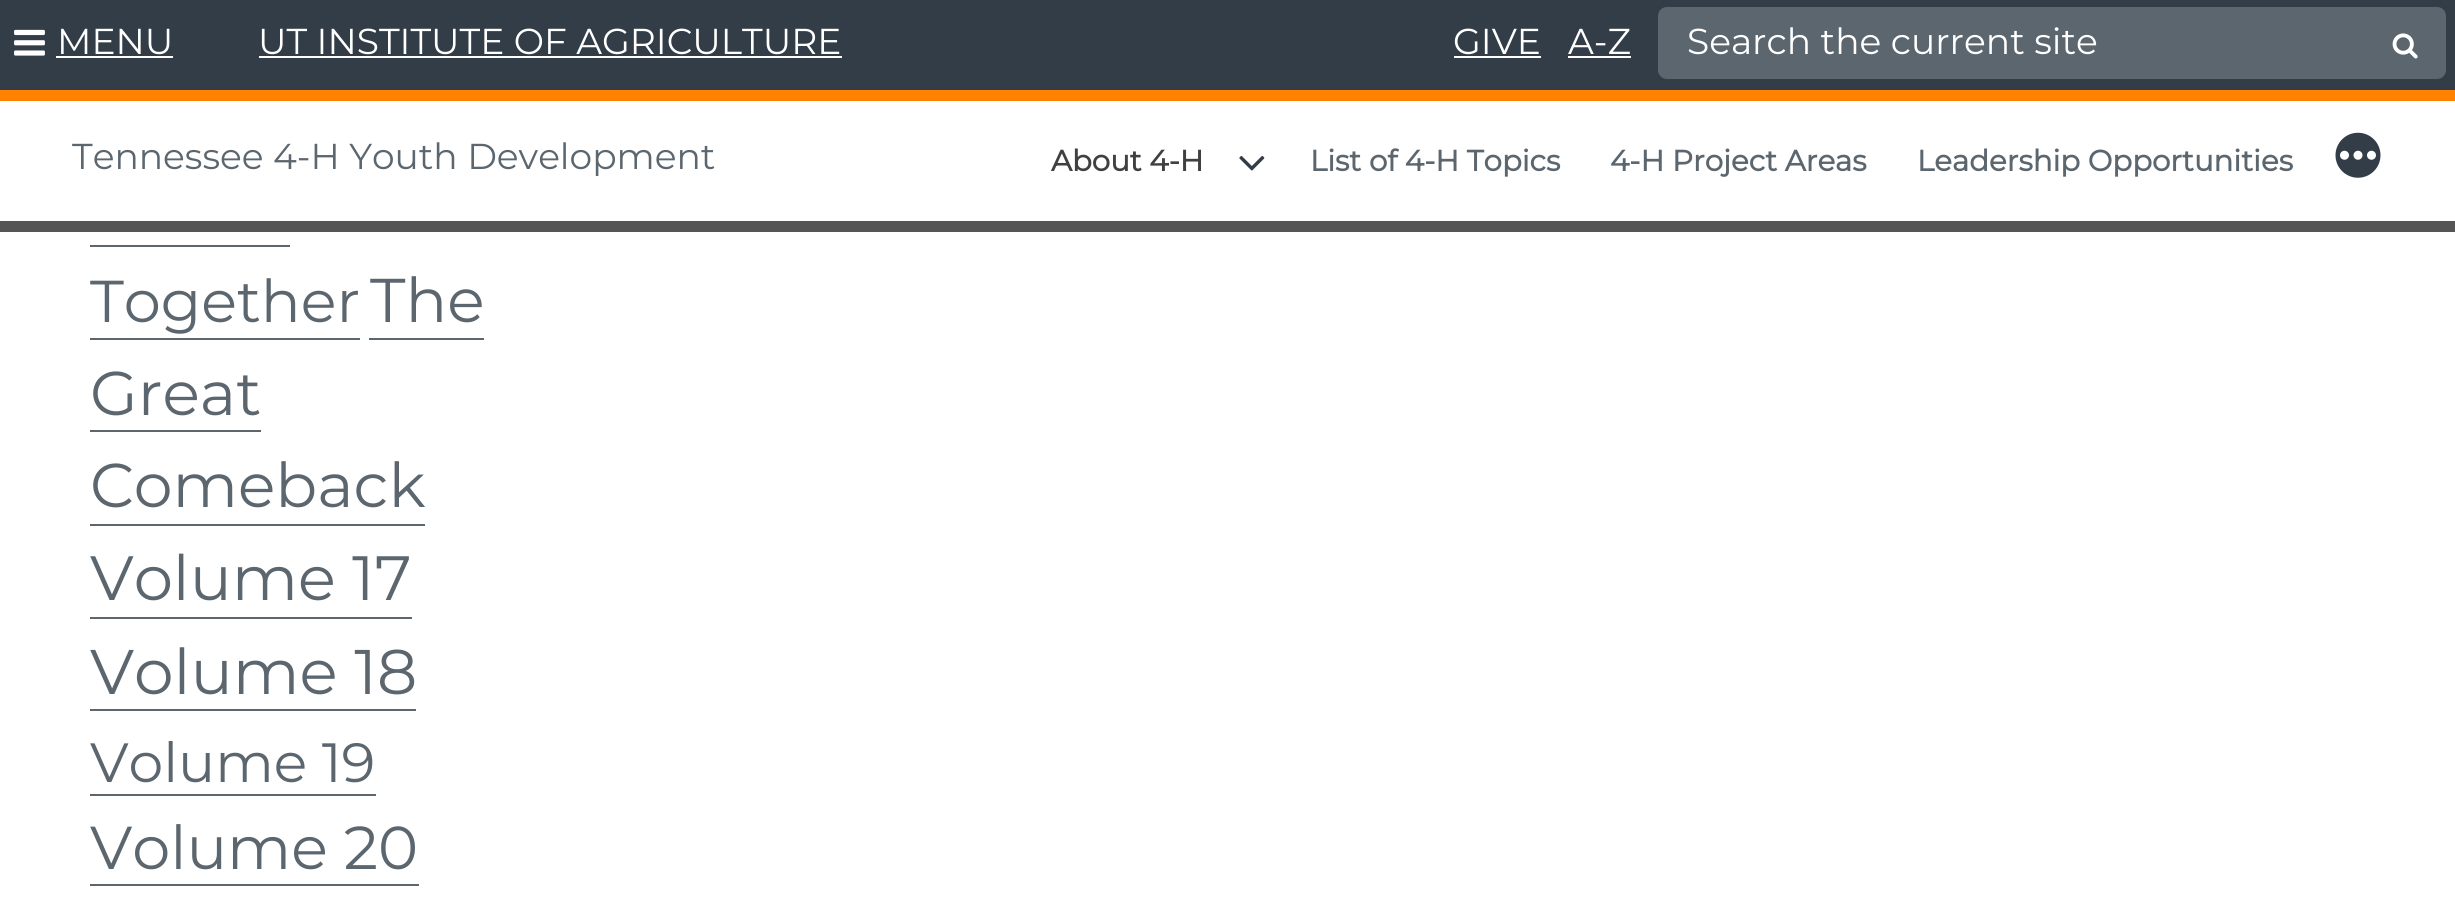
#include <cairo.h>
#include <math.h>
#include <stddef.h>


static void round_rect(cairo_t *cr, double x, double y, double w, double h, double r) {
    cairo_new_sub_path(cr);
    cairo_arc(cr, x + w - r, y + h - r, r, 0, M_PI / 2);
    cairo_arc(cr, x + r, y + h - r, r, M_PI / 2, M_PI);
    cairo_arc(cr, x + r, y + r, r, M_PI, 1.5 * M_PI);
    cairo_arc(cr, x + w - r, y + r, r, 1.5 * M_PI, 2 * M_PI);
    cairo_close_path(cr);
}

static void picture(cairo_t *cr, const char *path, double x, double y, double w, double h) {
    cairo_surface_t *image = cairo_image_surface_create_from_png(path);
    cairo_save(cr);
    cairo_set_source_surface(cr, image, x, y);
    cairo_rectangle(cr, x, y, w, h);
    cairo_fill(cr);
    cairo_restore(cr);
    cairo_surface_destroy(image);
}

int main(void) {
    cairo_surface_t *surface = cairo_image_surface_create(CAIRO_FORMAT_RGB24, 2455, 900);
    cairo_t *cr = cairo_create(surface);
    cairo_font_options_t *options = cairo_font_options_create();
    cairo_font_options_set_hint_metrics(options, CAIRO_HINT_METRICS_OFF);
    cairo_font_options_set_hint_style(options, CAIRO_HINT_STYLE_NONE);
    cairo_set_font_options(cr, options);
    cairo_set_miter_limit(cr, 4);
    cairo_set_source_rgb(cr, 1, 1, 1);
    cairo_paint(cr);
    cairo_set_source_rgb(cr, 0.2, 0.239, 0.278);
    cairo_rectangle(cr, 0, 0, 2455, 90);
    cairo_fill(cr);
    cairo_set_source_rgb(cr, 1, 0.514, 0);
    cairo_rectangle(cr, 0, 90, 2455, 11);
    cairo_fill(cr);
    picture(cr, "img1.png", 14, 29, 31, 27);
    cairo_select_font_face(cr, "Montserrat Thin", CAIRO_FONT_SLANT_NORMAL, CAIRO_FONT_WEIGHT_NORMAL);
    cairo_set_font_size(cr, 36);
    cairo_set_source_rgb(cr, 1, 1, 1);
    cairo_move_to(cr, 57, 54);
    cairo_show_text(cr, "MENU");
    cairo_rectangle(cr, 56, 56, 117, 2);
    cairo_fill(cr);
    cairo_move_to(cr, 258, 54);
    cairo_show_text(cr, "UT INSTITUTE OF AGRICULTURE");
    cairo_rectangle(cr, 259, 56, 583, 2);
    cairo_fill(cr);
    cairo_move_to(cr, 1453, 54);
    cairo_show_text(cr, "GIVE");
    cairo_rectangle(cr, 1454, 56, 87, 2);
    cairo_fill(cr);
    cairo_move_to(cr, 1568, 54);
    cairo_show_text(cr, "A-Z");
    cairo_rectangle(cr, 1568, 56, 63, 2);
    cairo_fill(cr);
    cairo_set_source_rgb(cr, 0.361, 0.4, 0.435);
    round_rect(cr, 1658, 7, 788, 72, 9);
    cairo_fill(cr);
    cairo_set_source_rgb(cr, 1, 1, 1);
    cairo_move_to(cr, 1687, 54);
    cairo_show_text(cr, "Search the current site");
    picture(cr, "img2.png", 2392, 33, 26, 26);
    cairo_set_source_rgb(cr, 0.333, 0.333, 0.333);
    cairo_rectangle(cr, 0, 221, 2455, 11);
    cairo_fill(cr);
    cairo_set_source_rgb(cr, 0.361, 0.4, 0.435);
    cairo_move_to(cr, 72, 169);
    cairo_show_text(cr, "Tennessee 4-H Youth Development");
    cairo_select_font_face(cr, "Montserrat", CAIRO_FONT_SLANT_NORMAL, CAIRO_FONT_WEIGHT_BOLD);
    cairo_set_font_size(cr, 29.25);
    cairo_set_source_rgb(cr, 0.251, 0.251, 0.251);
    cairo_move_to(cr, 1051, 171);
    cairo_show_text(cr, "About 4-H");
    picture(cr, "img3.png", 1239, 156, 26, 15);
    cairo_set_source_rgb(cr, 0.361, 0.4, 0.435);
    cairo_move_to(cr, 1310, 171);
    cairo_show_text(cr, "List of 4-H Topics");
    cairo_move_to(cr, 1610, 171);
    cairo_show_text(cr, "4-H Project Areas");
    cairo_move_to(cr, 1917, 171);
    cairo_show_text(cr, "Leadership Opportunities");
    picture(cr, "img4.png", 2335, 132, 46, 46);
    cairo_select_font_face(cr, "Montserrat Thin", CAIRO_FONT_SLANT_NORMAL, CAIRO_FONT_WEIGHT_NORMAL);
    cairo_set_font_size(cr, 59);
    cairo_move_to(cr, 90, 322);
    cairo_show_text(cr, "Together");
    cairo_rectangle(cr, 90, 245, 200, 2);
    cairo_fill(cr);
    cairo_rectangle(cr, 90, 338, 270, 2);
    cairo_fill(cr);
    cairo_set_font_size(cr, 61.75);
    cairo_move_to(cr, 370, 322);
    cairo_show_text(cr, "The");
    cairo_rectangle(cr, 369, 338, 115, 2);
    cairo_fill(cr);
    cairo_move_to(cr, 90, 415);
    cairo_show_text(cr, "Great");
    cairo_rectangle(cr, 90, 430, 171, 2);
    cairo_fill(cr);
    cairo_move_to(cr, 90, 507);
    cairo_show_text(cr, "Comeback");
    cairo_rectangle(cr, 90, 524, 335, 2);
    cairo_fill(cr);
    cairo_set_font_size(cr, 62.5);
    cairo_move_to(cr, 90, 600);
    cairo_show_text(cr, "Volume 17");
    cairo_rectangle(cr, 90, 617, 322, 2);
    cairo_fill(cr);
    cairo_set_font_size(cr, 63);
    cairo_move_to(cr, 90, 694);
    cairo_show_text(cr, "Volume 18");
    cairo_rectangle(cr, 90, 709, 326, 2);
    cairo_fill(cr);
    cairo_set_font_size(cr, 55.25);
    cairo_move_to(cr, 90, 782);
    cairo_show_text(cr, "Volume 19");
    cairo_rectangle(cr, 90, 794, 286, 2);
    cairo_fill(cr);
    cairo_set_font_size(cr, 60.5);
    cairo_move_to(cr, 90, 869);
    cairo_show_text(cr, "Volume 20");
    cairo_rectangle(cr, 90, 884, 329, 2);
    cairo_fill(cr);
    cairo_surface_write_to_png(surface, "page.png");
    cairo_font_options_destroy(options);
    cairo_destroy(cr);
    cairo_surface_destroy(surface);
    return 0;
}
